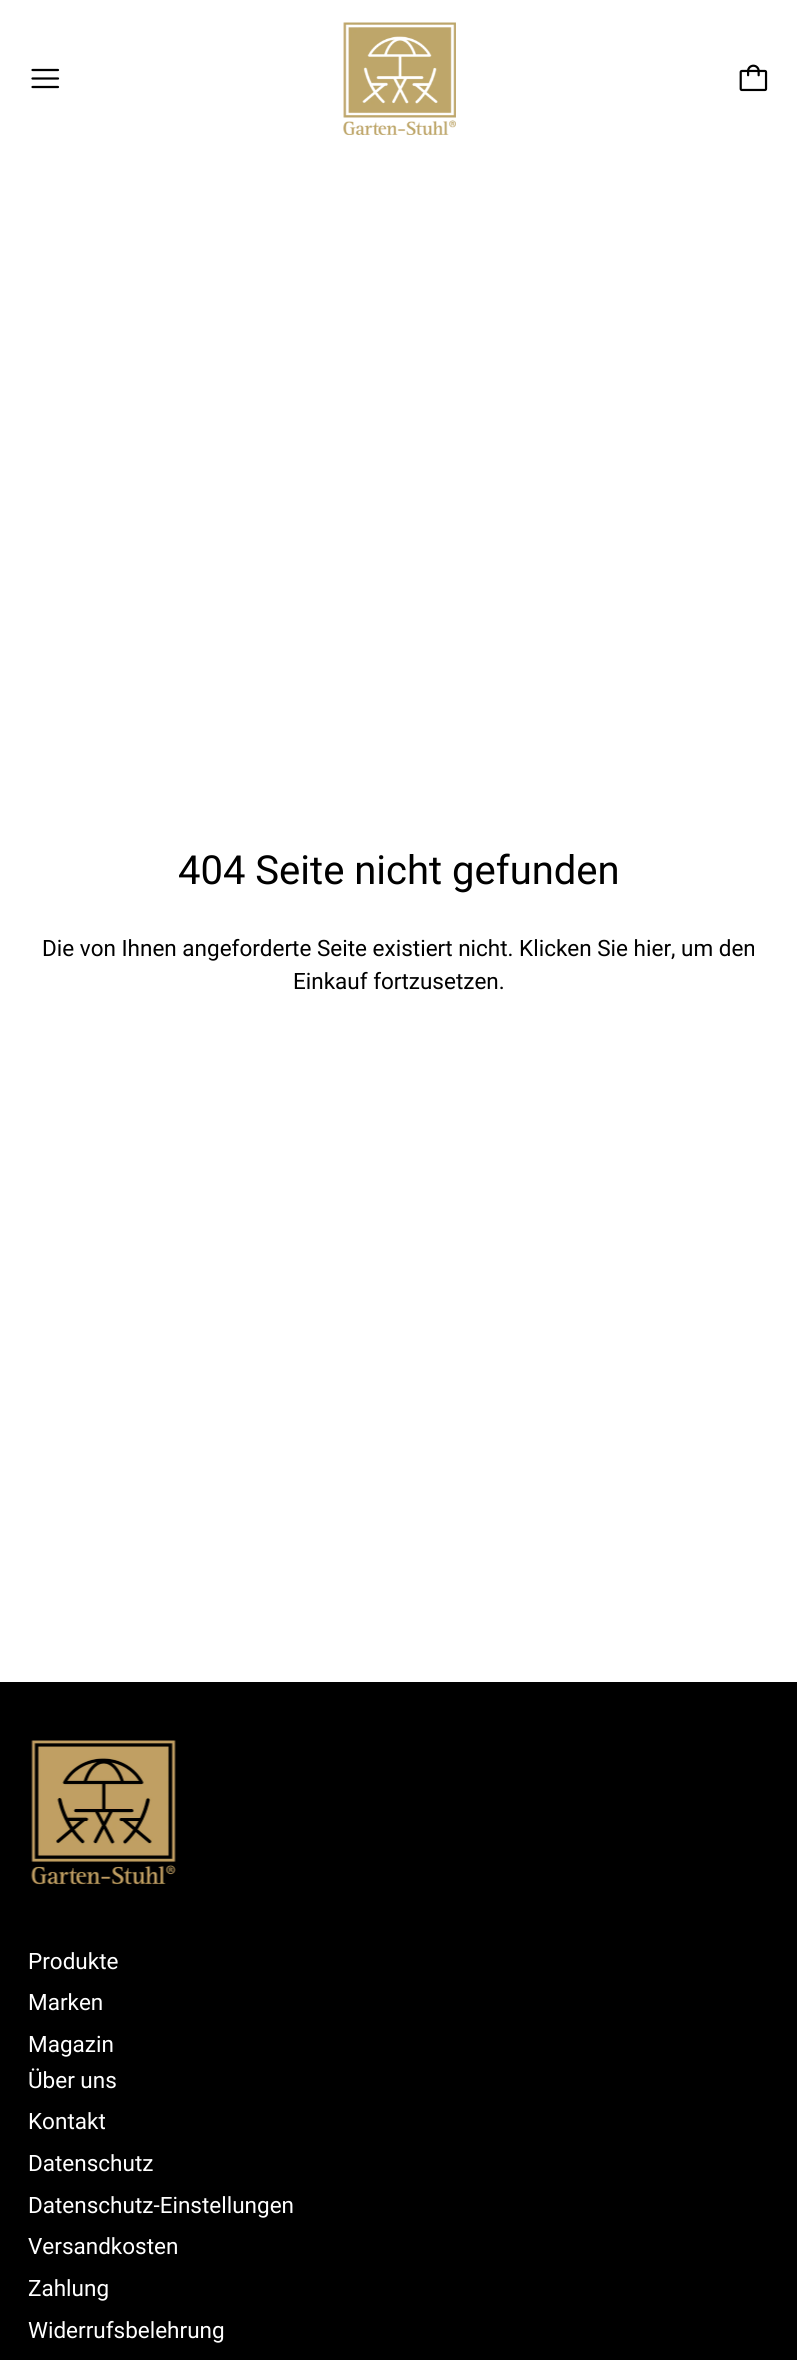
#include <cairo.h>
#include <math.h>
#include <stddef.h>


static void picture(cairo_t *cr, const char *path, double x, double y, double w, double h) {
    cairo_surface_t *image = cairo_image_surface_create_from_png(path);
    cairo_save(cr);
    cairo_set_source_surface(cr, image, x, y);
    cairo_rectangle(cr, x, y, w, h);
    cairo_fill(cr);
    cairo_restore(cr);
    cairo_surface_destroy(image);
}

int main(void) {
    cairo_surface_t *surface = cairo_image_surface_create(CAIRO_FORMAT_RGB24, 797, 2360);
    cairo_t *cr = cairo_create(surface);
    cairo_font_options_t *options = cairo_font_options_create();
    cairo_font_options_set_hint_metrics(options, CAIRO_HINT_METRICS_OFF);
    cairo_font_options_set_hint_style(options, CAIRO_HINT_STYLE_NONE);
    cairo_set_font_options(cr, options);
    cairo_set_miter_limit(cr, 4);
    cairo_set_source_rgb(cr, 1, 1, 1);
    cairo_paint(cr);
    cairo_new_path(cr);
    cairo_move_to(cr, 32.5, 78.5);
    cairo_line_to(cr, 58, 78.5);
    cairo_move_to(cr, 32.5, 70);
    cairo_line_to(cr, 58, 70);
    cairo_move_to(cr, 32.5, 87);
    cairo_line_to(cr, 58, 87);
    cairo_set_source_rgb(cr, 0, 0, 0);
    cairo_set_line_width(cr, 2.2);
    cairo_set_line_cap(cr, CAIRO_LINE_CAP_ROUND);
    cairo_set_line_join(cr, CAIRO_LINE_JOIN_ROUND);
    cairo_stroke(cr);
    picture(cr, "img1.png", 343, 22, 113, 113);
    picture(cr, "img2.png", 739, 64, 29, 28);
    cairo_select_font_face(cr, "Roboto", CAIRO_FONT_SLANT_NORMAL, CAIRO_FONT_WEIGHT_NORMAL);
    cairo_set_font_size(cr, 40);
    cairo_move_to(cr, 178, 884);
    cairo_show_text(cr, "404 Seite nicht gefunden");
    cairo_set_font_size(cr, 22.5);
    cairo_move_to(cr, 42, 956);
    cairo_show_text(cr, "Die von Ihnen angeforderte Seite existiert nicht. Klicken Sie hier, um den");
    cairo_move_to(cr, 293, 989);
    cairo_show_text(cr, "Einkauf fortzusetzen.");
    cairo_rectangle(cr, 0, 1682, 797, 678);
    cairo_fill(cr);
    picture(cr, "img3.png", 31, 1740, 145, 145);
    cairo_set_source_rgb(cr, 1, 1, 1);
    cairo_move_to(cr, 28, 1969);
    cairo_show_text(cr, "Produkte");
    cairo_move_to(cr, 28, 2010);
    cairo_show_text(cr, "Marken");
    cairo_move_to(cr, 28, 2052);
    cairo_show_text(cr, "Magazin");
    cairo_move_to(cr, 28, 2088);
    cairo_show_text(cr, "Über uns");
    cairo_move_to(cr, 28, 2129);
    cairo_show_text(cr, "Kontakt");
    cairo_move_to(cr, 28, 2171);
    cairo_show_text(cr, "Datenschutz");
    cairo_move_to(cr, 28, 2213);
    cairo_show_text(cr, "Datenschutz-Einstellungen");
    cairo_move_to(cr, 28, 2254);
    cairo_show_text(cr, "Versandkosten");
    cairo_move_to(cr, 28, 2296);
    cairo_show_text(cr, "Zahlung");
    cairo_move_to(cr, 28, 2338);
    cairo_show_text(cr, "Widerrufsbelehrung");
    cairo_surface_write_to_png(surface, "page.png");
    cairo_font_options_destroy(options);
    cairo_destroy(cr);
    cairo_surface_destroy(surface);
    return 0;
}
